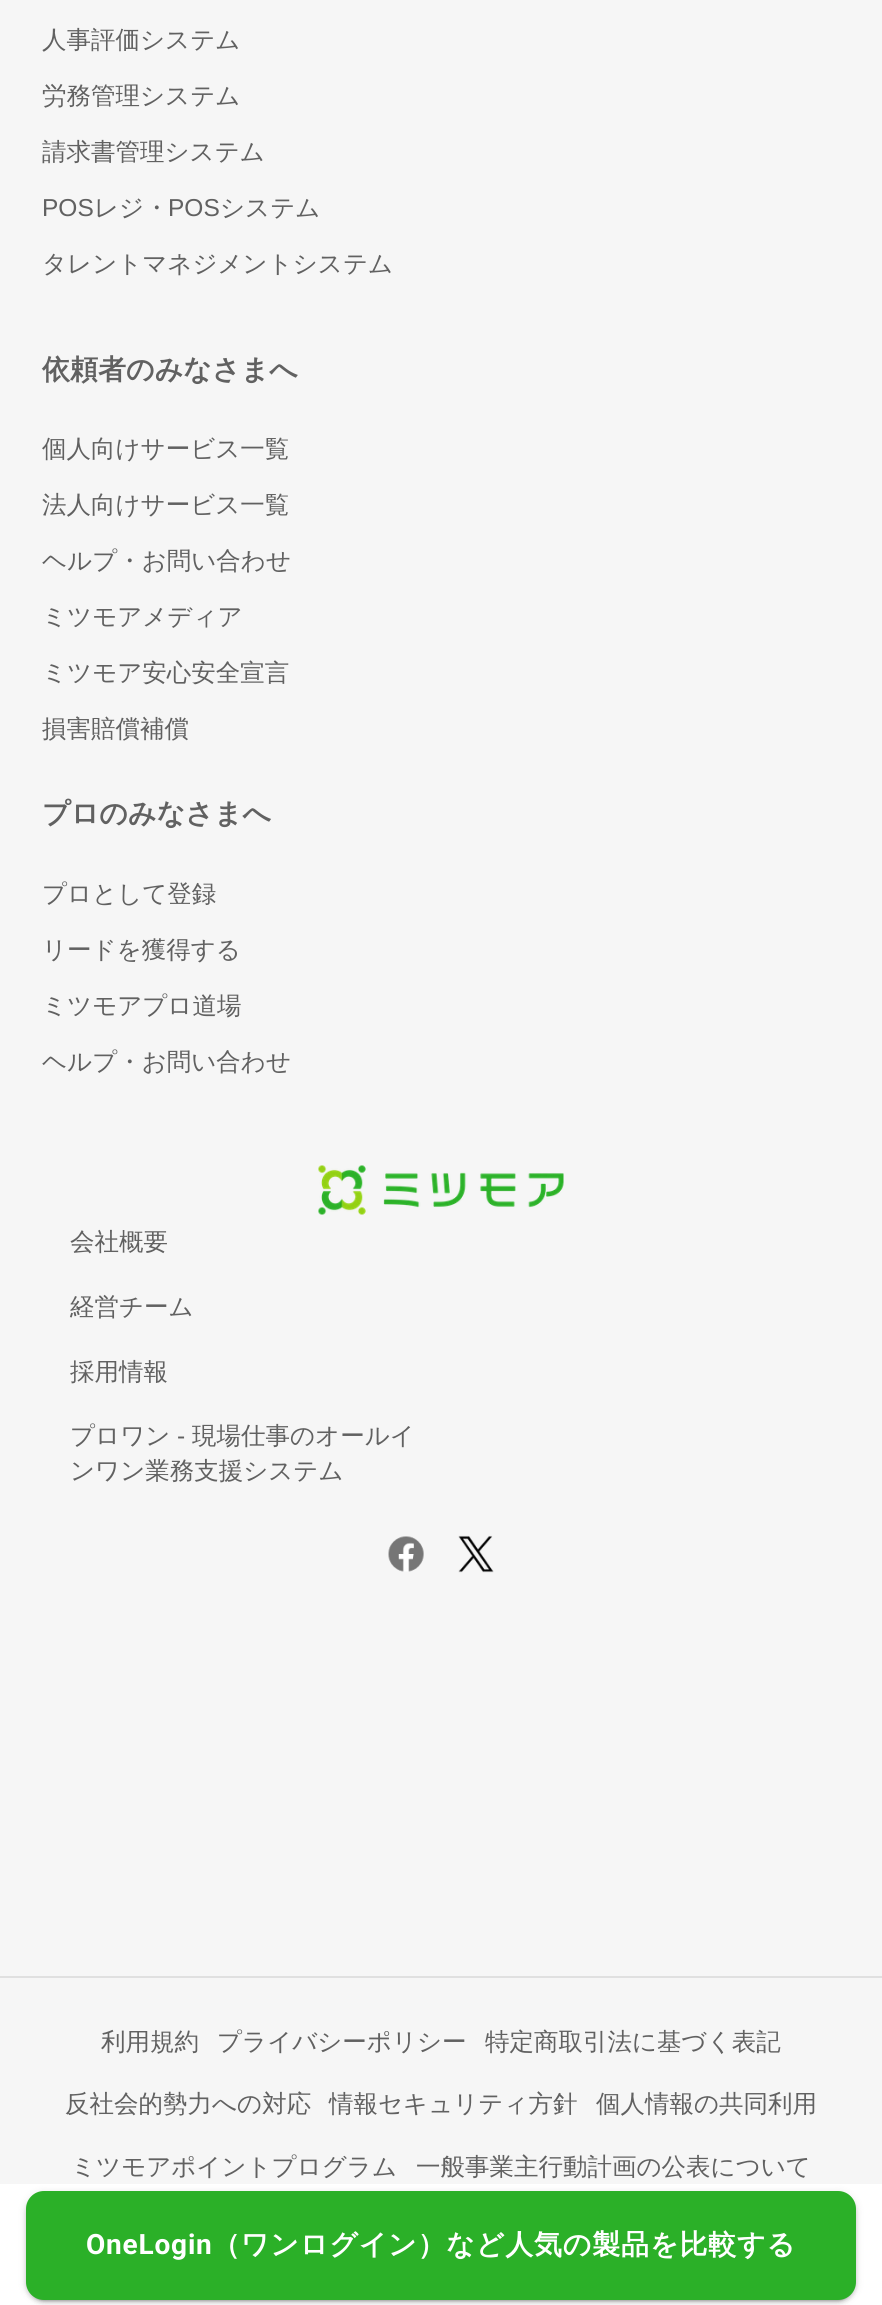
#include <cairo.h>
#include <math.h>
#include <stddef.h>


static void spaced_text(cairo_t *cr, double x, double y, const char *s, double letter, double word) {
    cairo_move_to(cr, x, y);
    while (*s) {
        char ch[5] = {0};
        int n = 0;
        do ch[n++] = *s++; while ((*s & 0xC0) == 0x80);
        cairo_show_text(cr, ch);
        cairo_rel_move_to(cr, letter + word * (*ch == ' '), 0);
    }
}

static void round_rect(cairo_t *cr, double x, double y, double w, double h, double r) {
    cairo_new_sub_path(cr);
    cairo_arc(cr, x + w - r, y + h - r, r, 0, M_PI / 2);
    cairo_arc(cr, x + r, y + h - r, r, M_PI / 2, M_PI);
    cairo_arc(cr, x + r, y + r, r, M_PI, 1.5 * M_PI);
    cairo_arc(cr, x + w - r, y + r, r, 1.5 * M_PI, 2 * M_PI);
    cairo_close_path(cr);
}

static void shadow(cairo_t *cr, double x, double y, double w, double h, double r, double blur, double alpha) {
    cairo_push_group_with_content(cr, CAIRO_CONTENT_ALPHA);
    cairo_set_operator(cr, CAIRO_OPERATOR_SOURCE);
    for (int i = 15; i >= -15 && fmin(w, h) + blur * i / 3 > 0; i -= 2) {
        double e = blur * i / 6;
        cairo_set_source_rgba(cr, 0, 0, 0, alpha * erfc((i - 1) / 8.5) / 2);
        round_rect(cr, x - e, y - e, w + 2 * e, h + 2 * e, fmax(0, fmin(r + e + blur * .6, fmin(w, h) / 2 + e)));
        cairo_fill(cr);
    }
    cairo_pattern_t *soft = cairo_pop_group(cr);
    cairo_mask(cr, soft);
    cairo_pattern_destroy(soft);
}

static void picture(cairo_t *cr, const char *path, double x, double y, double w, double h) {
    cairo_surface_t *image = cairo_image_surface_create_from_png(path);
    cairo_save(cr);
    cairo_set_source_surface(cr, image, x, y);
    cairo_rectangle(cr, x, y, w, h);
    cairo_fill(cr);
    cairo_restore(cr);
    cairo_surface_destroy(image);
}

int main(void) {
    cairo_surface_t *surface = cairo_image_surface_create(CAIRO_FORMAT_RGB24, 882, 2305);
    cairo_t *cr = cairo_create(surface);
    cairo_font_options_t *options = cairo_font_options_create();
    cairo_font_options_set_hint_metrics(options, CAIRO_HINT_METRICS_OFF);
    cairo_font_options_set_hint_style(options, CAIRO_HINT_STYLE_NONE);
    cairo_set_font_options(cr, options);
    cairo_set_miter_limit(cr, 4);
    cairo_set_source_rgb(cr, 0.961, 0.961, 0.961);
    cairo_paint(cr);
    cairo_set_source_rgb(cr, 0.878, 0.878, 0.878);
    cairo_rectangle(cr, 0, 1976, 882, 2);
    cairo_fill(cr);
    cairo_select_font_face(cr, "WenQuanYi Zen Hei Medium", CAIRO_FONT_SLANT_NORMAL, CAIRO_FONT_WEIGHT_NORMAL);
    cairo_set_font_size(cr, 24.5);
    cairo_set_source_rgb(cr, 0.38, 0.38, 0.38);
    cairo_move_to(cr, 42, 48);
    cairo_show_text(cr, "人事評価システム");
    cairo_move_to(cr, 42, 104);
    cairo_show_text(cr, "労務管理システム");
    cairo_move_to(cr, 42, 160);
    cairo_show_text(cr, "請求書管理システム");
    cairo_select_font_face(cr, "Liberation Sans", CAIRO_FONT_SLANT_NORMAL, CAIRO_FONT_WEIGHT_NORMAL);
    cairo_move_to(cr, 42, 216);
    cairo_show_text(cr, "POS");
    cairo_select_font_face(cr, "WenQuanYi Zen Hei Medium", CAIRO_FONT_SLANT_NORMAL, CAIRO_FONT_WEIGHT_NORMAL);
    cairo_move_to(cr, 94, 216);
    cairo_show_text(cr, "レジ・");
    cairo_select_font_face(cr, "Liberation Sans", CAIRO_FONT_SLANT_NORMAL, CAIRO_FONT_WEIGHT_NORMAL);
    cairo_move_to(cr, 168, 216);
    cairo_show_text(cr, "POS");
    cairo_select_font_face(cr, "WenQuanYi Zen Hei Medium", CAIRO_FONT_SLANT_NORMAL, CAIRO_FONT_WEIGHT_NORMAL);
    cairo_move_to(cr, 220, 216);
    cairo_show_text(cr, "システム");
    cairo_move_to(cr, 42, 272);
    cairo_show_text(cr, "タレントマネジメントシステム");
    cairo_select_font_face(cr, "WenQuanYi Zen Hei", CAIRO_FONT_SLANT_NORMAL, CAIRO_FONT_WEIGHT_BOLD);
    cairo_set_font_size(cr, 28);
    cairo_move_to(cr, 42, 379);
    cairo_show_text(cr, "依頼者のみなさまへ");
    cairo_select_font_face(cr, "WenQuanYi Zen Hei Medium", CAIRO_FONT_SLANT_NORMAL, CAIRO_FONT_WEIGHT_NORMAL);
    cairo_set_font_size(cr, 24.5);
    cairo_move_to(cr, 42, 457);
    cairo_show_text(cr, "個人向けサービス一覧");
    cairo_move_to(cr, 42, 513);
    cairo_show_text(cr, "法人向けサービス一覧");
    cairo_move_to(cr, 42, 569);
    cairo_show_text(cr, "ヘルプ・お問い合わせ");
    cairo_move_to(cr, 42, 625);
    cairo_show_text(cr, "ミツモアメディア");
    cairo_move_to(cr, 42, 681);
    cairo_show_text(cr, "ミツモア安心安全宣言");
    cairo_move_to(cr, 42, 737);
    cairo_show_text(cr, "損害賠償補償");
    cairo_select_font_face(cr, "WenQuanYi Zen Hei", CAIRO_FONT_SLANT_NORMAL, CAIRO_FONT_WEIGHT_BOLD);
    cairo_set_font_size(cr, 28);
    cairo_move_to(cr, 42, 823);
    cairo_show_text(cr, "プロのみなさまへ");
    cairo_select_font_face(cr, "WenQuanYi Zen Hei Medium", CAIRO_FONT_SLANT_NORMAL, CAIRO_FONT_WEIGHT_NORMAL);
    cairo_set_font_size(cr, 24.5);
    cairo_move_to(cr, 42, 902);
    cairo_show_text(cr, "プロとして登録");
    cairo_move_to(cr, 42, 958);
    cairo_show_text(cr, "リードを獲得する");
    cairo_move_to(cr, 42, 1014);
    cairo_show_text(cr, "ミツモアプロ道場");
    cairo_move_to(cr, 42, 1070);
    cairo_show_text(cr, "ヘルプ・お問い合わせ");
    picture(cr, "img1.png", 318, 1165, 246, 50);
    cairo_move_to(cr, 70, 1250);
    cairo_show_text(cr, "会社概要");
    cairo_move_to(cr, 70, 1315);
    cairo_show_text(cr, "経営チーム");
    cairo_move_to(cr, 70, 1380);
    cairo_show_text(cr, "採用情報");
    cairo_move_to(cr, 70, 1444);
    cairo_show_text(cr, "プロワン");
    cairo_select_font_face(cr, "Liberation Sans", CAIRO_FONT_SLANT_NORMAL, CAIRO_FONT_WEIGHT_NORMAL);
    cairo_move_to(cr, 177, 1444);
    cairo_show_text(cr, "-");
    cairo_select_font_face(cr, "WenQuanYi Zen Hei Medium", CAIRO_FONT_SLANT_NORMAL, CAIRO_FONT_WEIGHT_NORMAL);
    cairo_move_to(cr, 192, 1444);
    cairo_show_text(cr, "現場仕事のオールイ");
    cairo_move_to(cr, 70, 1479);
    cairo_show_text(cr, "ンワン業務支援システム");
    picture(cr, "img2.png", 388, 1536, 36, 36);
    picture(cr, "img3.png", 458, 1535, 36, 38);
    cairo_move_to(cr, 101, 2050);
    cairo_show_text(cr, "利用規約");
    cairo_move_to(cr, 217, 2050);
    cairo_show_text(cr, "プライバシーポリシー");
    cairo_move_to(cr, 485, 2050);
    cairo_show_text(cr, "特定商取引法に基づく表記");
    cairo_move_to(cr, 65, 2112);
    cairo_show_text(cr, "反社会的勢力への対応");
    cairo_move_to(cr, 329, 2112);
    cairo_show_text(cr, "情報セキュリティ方針");
    cairo_move_to(cr, 596, 2112);
    cairo_show_text(cr, "個人情報の共同利用");
    cairo_move_to(cr, 71, 2175);
    cairo_show_text(cr, "ミツモアポイントプログラム");
    cairo_move_to(cr, 416, 2175);
    cairo_show_text(cr, "一般事業主行動計画の公表について");
    cairo_set_source_rgb(cr, 1, 1, 1);
    cairo_rectangle(cr, 0, 2184, 882, 121);
    cairo_fill(cr);
    cairo_set_source_rgb(cr, 0, 0, 0);
    shadow(cr, 26, 2193, 830, 108, 18, 4.5, 0.12);
    shadow(cr, 26, 2195, 830, 108, 18, 2, 0.14);
    shadow(cr, 30, 2200, 822, 101, 14, 1, 0.2);
    cairo_set_source_rgb(cr, 0.169, 0.69, 0.157);
    round_rect(cr, 26, 2191, 830, 109, 18);
    cairo_fill(cr);
    cairo_select_font_face(cr, "Roboto", CAIRO_FONT_SLANT_NORMAL, CAIRO_FONT_WEIGHT_BOLD);
    cairo_set_font_size(cr, 28);
    cairo_set_source_rgb(cr, 1, 1, 1);
    spaced_text(cr, 86, 2254, "OneLogin", 0.8, 0);
    cairo_select_font_face(cr, "WenQuanYi Zen Hei", CAIRO_FONT_SLANT_NORMAL, CAIRO_FONT_WEIGHT_BOLD);
    spaced_text(cr, 212, 2254, "（ワンログイン）など人気の製品を比較する", 0.8, 0);
    cairo_surface_write_to_png(surface, "page.png");
    cairo_font_options_destroy(options);
    cairo_destroy(cr);
    cairo_surface_destroy(surface);
    return 0;
}
